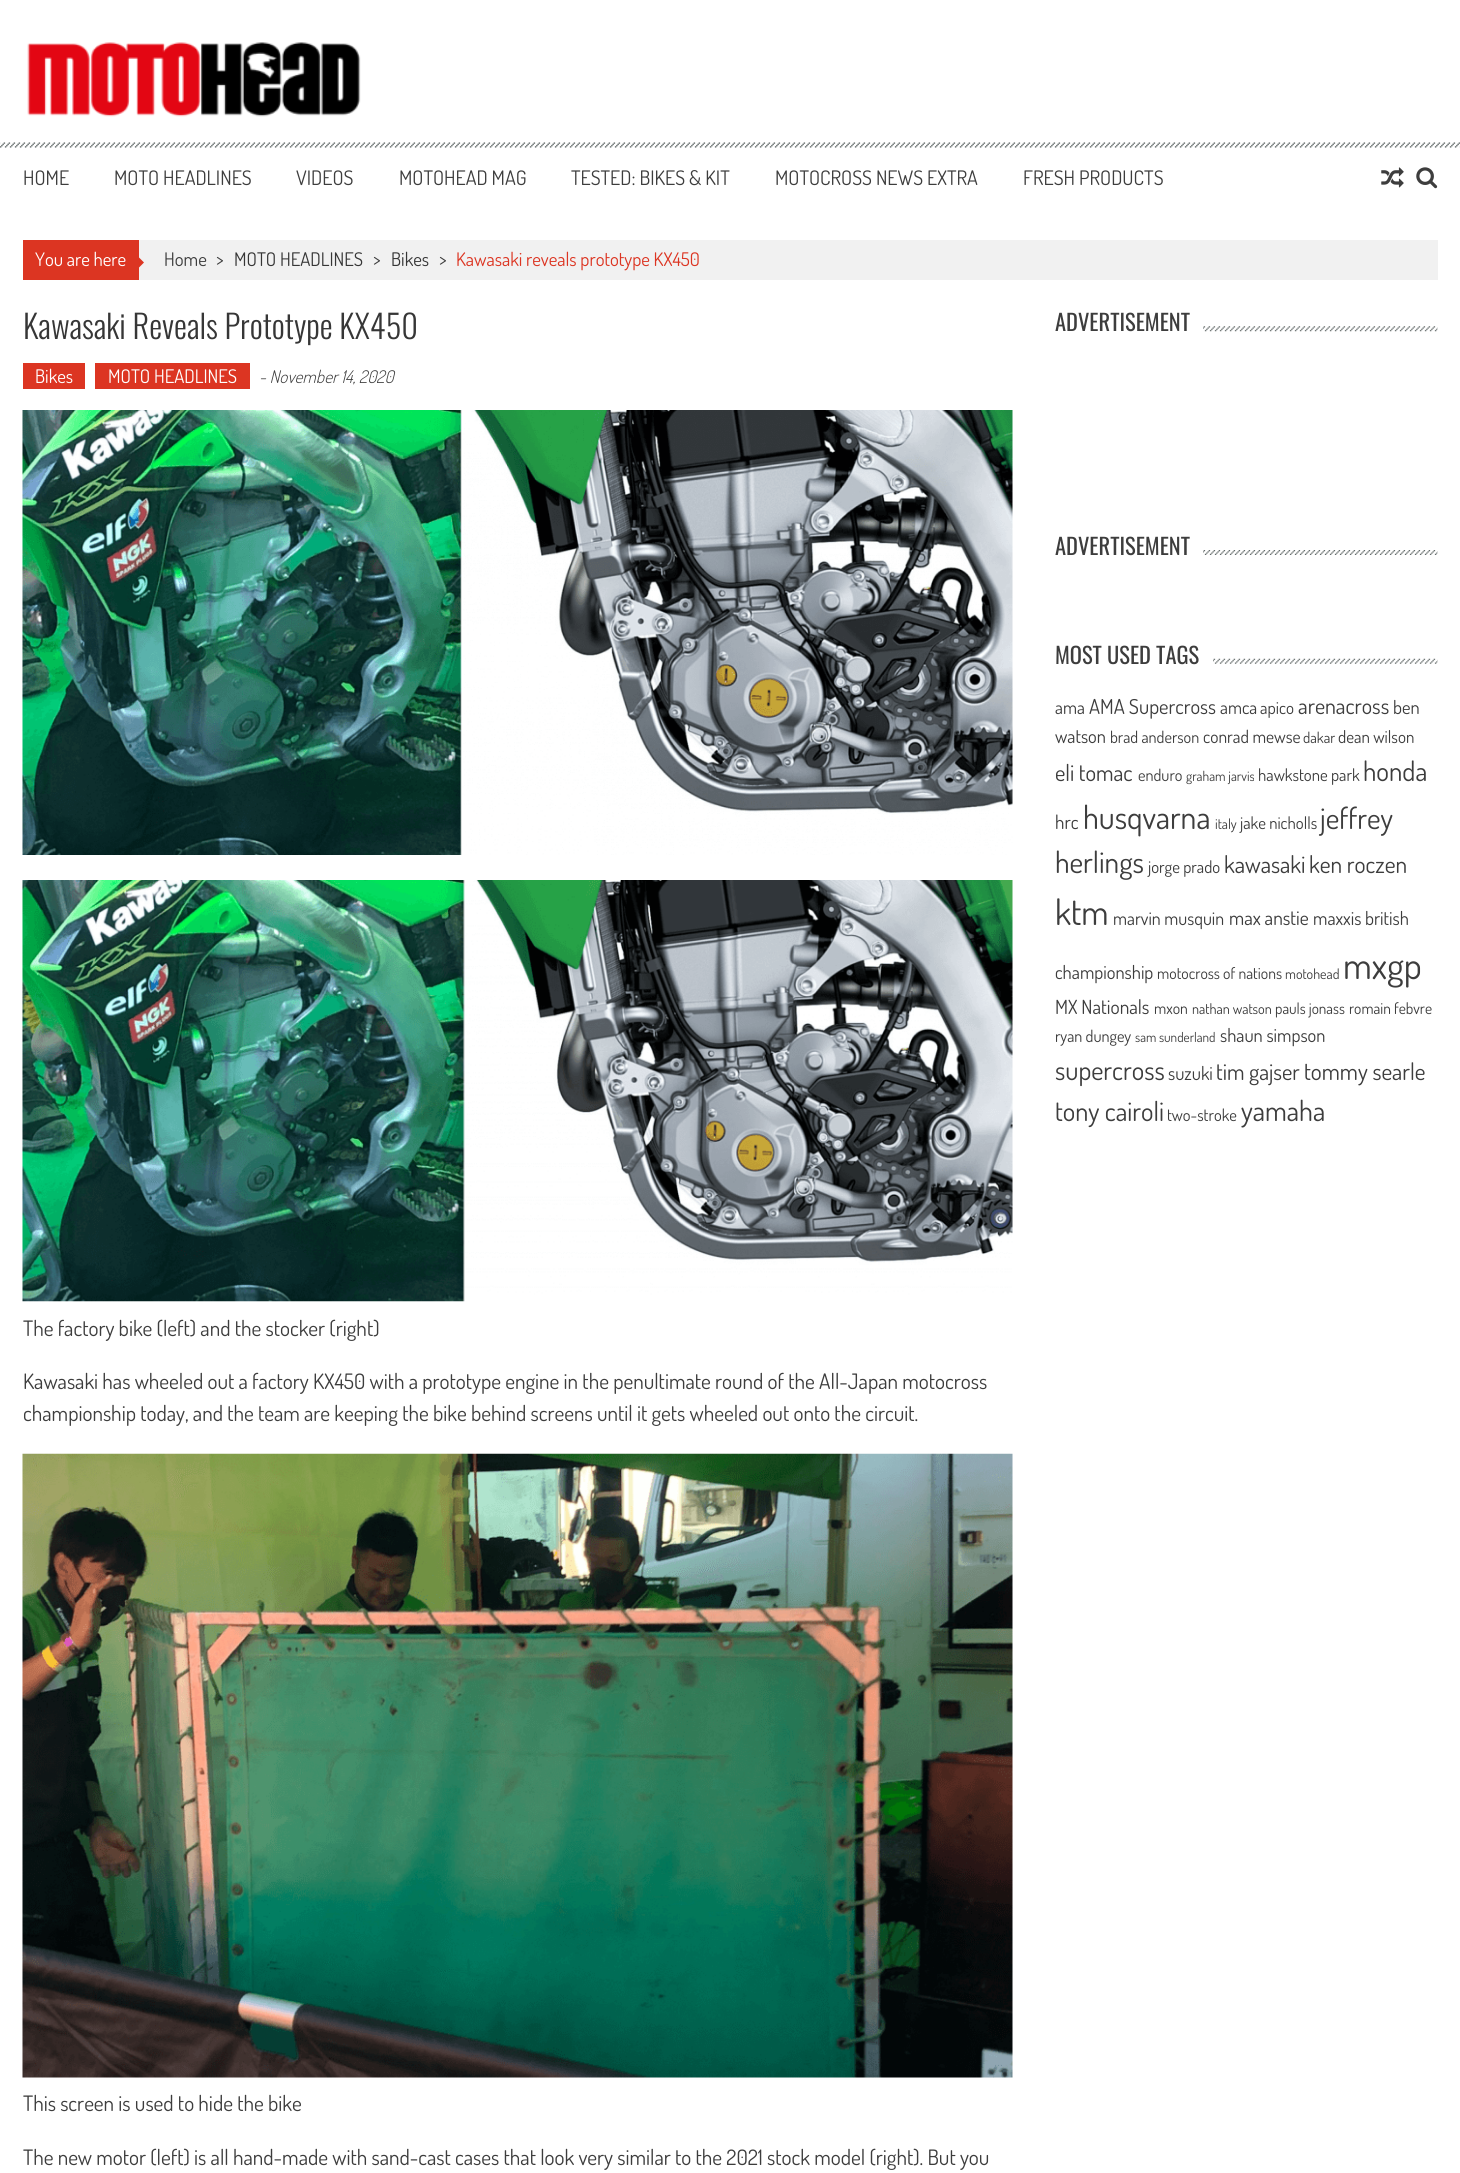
#include <cairo.h>
#include <math.h>
#include <stddef.h>


static void picture(cairo_t *cr, const char *path, double x, double y, double w, double h) {
    cairo_surface_t *image = cairo_image_surface_create_from_png(path);
    cairo_save(cr);
    cairo_set_source_surface(cr, image, x, y);
    cairo_rectangle(cr, x, y, w, h);
    cairo_fill(cr);
    cairo_restore(cr);
    cairo_surface_destroy(image);
}

int main(void) {
    cairo_surface_t *surface = cairo_image_surface_create(CAIRO_FORMAT_RGB24, 1460, 2173);
    cairo_t *cr = cairo_create(surface);
    cairo_font_options_t *options = cairo_font_options_create();
    cairo_font_options_set_hint_metrics(options, CAIRO_HINT_METRICS_OFF);
    cairo_font_options_set_hint_style(options, CAIRO_HINT_STYLE_NONE);
    cairo_set_font_options(cr, options);
    cairo_set_miter_limit(cr, 4);
    cairo_set_source_rgb(cr, 1, 1, 1);
    cairo_paint(cr);
    picture(cr, "img1.png", 0, 142, 1460, 6);
    picture(cr, "img2.png", 27, 42, 334, 75);
    cairo_select_font_face(cr, "Dosis", CAIRO_FONT_SLANT_NORMAL, CAIRO_FONT_WEIGHT_NORMAL);
    cairo_set_font_size(cr, 20);
    cairo_set_source_rgb(cr, 0.239, 0.239, 0.239);
    cairo_move_to(cr, 23, 185);
    cairo_show_text(cr, "HOME");
    cairo_move_to(cr, 114, 185);
    cairo_show_text(cr, "MOTO HEADLINES");
    cairo_move_to(cr, 296, 185);
    cairo_show_text(cr, "VIDEOS");
    cairo_move_to(cr, 399, 185);
    cairo_show_text(cr, "MOTOHEAD MAG");
    cairo_move_to(cr, 571, 185);
    cairo_show_text(cr, "TESTED: BIKES & KIT");
    cairo_move_to(cr, 775, 185);
    cairo_show_text(cr, "MOTOCROSS NEWS EXTRA");
    cairo_move_to(cr, 1023, 185);
    cairo_show_text(cr, "FRESH PRODUCTS");
    picture(cr, "img3.png", 1381, 167, 23, 21);
    picture(cr, "img4.png", 1416, 167, 22, 22);
    cairo_set_source_rgb(cr, 0.945, 0.945, 0.945);
    cairo_rectangle(cr, 139, 240, 1299, 40);
    cairo_fill(cr);
    cairo_set_source_rgb(cr, 0.863, 0.208, 0.133);
    cairo_rectangle(cr, 23, 240, 116, 40);
    cairo_fill(cr);
    cairo_set_font_size(cr, 18.75);
    cairo_set_source_rgb(cr, 1, 1, 1);
    cairo_move_to(cr, 35, 266);
    cairo_show_text(cr, "You are here");
    cairo_set_source_rgb(cr, 0.863, 0.208, 0.133);
    cairo_new_path(cr);
    cairo_move_to(cr, 137.5, 269);
    cairo_line_to(cr, 137.5, 256);
    cairo_line_to(cr, 144, 262.5);
    cairo_close_path(cr);
    cairo_fill(cr);
    cairo_set_source_rgb(cr, 0.239, 0.239, 0.239);
    cairo_move_to(cr, 164, 266);
    cairo_show_text(cr, "Home");
    cairo_move_to(cr, 216, 266);
    cairo_show_text(cr, ">");
    cairo_set_source_rgb(cr, 0.212, 0.212, 0.212);
    cairo_move_to(cr, 234, 266);
    cairo_show_text(cr, "MOTO HEADLINES");
    cairo_set_source_rgb(cr, 0.239, 0.239, 0.239);
    cairo_move_to(cr, 373, 266);
    cairo_show_text(cr, ">");
    cairo_set_source_rgb(cr, 0.212, 0.212, 0.212);
    cairo_move_to(cr, 391, 266);
    cairo_show_text(cr, "Bikes");
    cairo_set_source_rgb(cr, 0.239, 0.239, 0.239);
    cairo_move_to(cr, 439, 266);
    cairo_show_text(cr, ">");
    cairo_set_source_rgb(cr, 0.863, 0.208, 0.133);
    cairo_move_to(cr, 456, 266);
    cairo_show_text(cr, "Kawasaki reveals prototype KX450");
    cairo_select_font_face(cr, "Oswald Light", CAIRO_FONT_SLANT_NORMAL, CAIRO_FONT_WEIGHT_NORMAL);
    cairo_set_font_size(cr, 32.5);
    cairo_set_source_rgb(cr, 0.212, 0.212, 0.212);
    cairo_move_to(cr, 23, 339);
    cairo_show_text(cr, "Kawasaki Reveals Prototype KX450");
    cairo_set_source_rgb(cr, 0.863, 0.208, 0.133);
    cairo_rectangle(cr, 23, 363, 62, 26);
    cairo_fill(cr);
    cairo_select_font_face(cr, "Dosis", CAIRO_FONT_SLANT_NORMAL, CAIRO_FONT_WEIGHT_NORMAL);
    cairo_set_font_size(cr, 18.75);
    cairo_set_source_rgb(cr, 1, 1, 1);
    cairo_move_to(cr, 35, 383);
    cairo_show_text(cr, "Bikes");
    cairo_set_source_rgb(cr, 0.863, 0.208, 0.133);
    cairo_rectangle(cr, 95, 363, 155, 26);
    cairo_fill(cr);
    cairo_set_source_rgb(cr, 1, 1, 1);
    cairo_move_to(cr, 108, 383);
    cairo_show_text(cr, "MOTO HEADLINES");
    cairo_select_font_face(cr, "Dosis Light", CAIRO_FONT_SLANT_ITALIC, CAIRO_FONT_WEIGHT_NORMAL);
    cairo_set_font_size(cr, 17.5);
    cairo_set_source_rgb(cr, 0.239, 0.239, 0.239);
    cairo_move_to(cr, 259, 383);
    cairo_show_text(cr, "- November 14, 2020");
    picture(cr, "img5.png", 22, 410, 991, 445);
    picture(cr, "img6.png", 22, 880, 991, 422);
    cairo_select_font_face(cr, "Dosis", CAIRO_FONT_SLANT_NORMAL, CAIRO_FONT_WEIGHT_NORMAL);
    cairo_set_font_size(cr, 21.25);
    cairo_move_to(cr, 23, 1336);
    cairo_show_text(cr, "The factory bike (left) and the stocker (right)");
    cairo_move_to(cr, 23, 1389);
    cairo_show_text(cr, "Kawasaki has wheeled out a factory KX450 with a prototype engine in the penultimate round of the All-Japan motocross");
    cairo_move_to(cr, 23, 1421);
    cairo_show_text(cr, "championship today, and the team are keeping the bike behind screens until it gets wheeled out onto the circuit.");
    picture(cr, "img7.png", 22, 1453, 991, 625);
    cairo_move_to(cr, 23, 2111);
    cairo_show_text(cr, "This screen is used to hide the bike");
    cairo_move_to(cr, 23, 2165);
    cairo_show_text(cr, "The new motor (left) is all hand-made with sand-cast cases that look very similar to the 2021 stock model (right). But you");
    picture(cr, "img8.png", 1203, 326, 235, 6);
    cairo_select_font_face(cr, "Oswald", CAIRO_FONT_SLANT_NORMAL, CAIRO_FONT_WEIGHT_NORMAL);
    cairo_set_font_size(cr, 22.5);
    cairo_move_to(cr, 1055, 331);
    cairo_show_text(cr, "ADVERTISEMENT");
    picture(cr, "img9.png", 1203, 550, 235, 5);
    cairo_move_to(cr, 1055, 555);
    cairo_show_text(cr, "ADVERTISEMENT");
    picture(cr, "img10.png", 1213, 658, 225, 6);
    cairo_move_to(cr, 1055, 664);
    cairo_show_text(cr, "MOST USED TAGS");
    cairo_select_font_face(cr, "Dosis", CAIRO_FONT_SLANT_NORMAL, CAIRO_FONT_WEIGHT_NORMAL);
    cairo_set_font_size(cr, 18);
    cairo_move_to(cr, 1055, 714);
    cairo_show_text(cr, "ama");
    cairo_set_font_size(cr, 20.5);
    cairo_move_to(cr, 1089, 714);
    cairo_show_text(cr, "AMA Supercross");
    cairo_set_font_size(cr, 18);
    cairo_move_to(cr, 1220, 714);
    cairo_show_text(cr, "amca");
    cairo_set_font_size(cr, 17);
    cairo_move_to(cr, 1260, 714);
    cairo_show_text(cr, "apico");
    cairo_set_font_size(cr, 22);
    cairo_move_to(cr, 1298, 714);
    cairo_show_text(cr, "arenacross");
    cairo_set_font_size(cr, 18.5);
    cairo_move_to(cr, 1393, 714);
    cairo_show_text(cr, "ben");
    cairo_move_to(cr, 1055, 743);
    cairo_show_text(cr, "watson");
    cairo_set_font_size(cr, 16.25);
    cairo_move_to(cr, 1110, 743);
    cairo_show_text(cr, "brad anderson");
    cairo_set_font_size(cr, 17.5);
    cairo_move_to(cr, 1203, 743);
    cairo_show_text(cr, "conrad mewse");
    cairo_set_font_size(cr, 15);
    cairo_move_to(cr, 1303, 743);
    cairo_show_text(cr, "dakar");
    cairo_set_font_size(cr, 17);
    cairo_move_to(cr, 1338, 743);
    cairo_show_text(cr, "dean wilson");
    cairo_set_font_size(cr, 22.5);
    cairo_move_to(cr, 1055, 781);
    cairo_show_text(cr, "eli tomac");
    cairo_set_font_size(cr, 16.25);
    cairo_move_to(cr, 1138, 781);
    cairo_show_text(cr, "enduro");
    cairo_set_font_size(cr, 13.5);
    cairo_move_to(cr, 1186, 781);
    cairo_show_text(cr, "graham jarvis");
    cairo_set_font_size(cr, 16.75);
    cairo_move_to(cr, 1258, 781);
    cairo_show_text(cr, "hawkstone park");
    cairo_set_font_size(cr, 27);
    cairo_move_to(cr, 1363, 781);
    cairo_show_text(cr, "honda");
    cairo_set_font_size(cr, 19);
    cairo_move_to(cr, 1055, 829);
    cairo_show_text(cr, "hrc");
    cairo_set_font_size(cr, 32);
    cairo_move_to(cr, 1083, 829);
    cairo_show_text(cr, "husqvarna");
    cairo_set_font_size(cr, 14);
    cairo_move_to(cr, 1215, 829);
    cairo_show_text(cr, "italy");
    cairo_set_font_size(cr, 16.75);
    cairo_move_to(cr, 1240, 829);
    cairo_show_text(cr, "jake nicholls");
    cairo_set_font_size(cr, 29.5);
    cairo_move_to(cr, 1320, 829);
    cairo_show_text(cr, "jeffrey");
    cairo_move_to(cr, 1055, 873);
    cairo_show_text(cr, "herlings");
    cairo_set_font_size(cr, 16.75);
    cairo_move_to(cr, 1148, 873);
    cairo_show_text(cr, "jorge prado");
    cairo_set_font_size(cr, 23.5);
    cairo_move_to(cr, 1224, 873);
    cairo_show_text(cr, "kawasaki");
    cairo_move_to(cr, 1309, 873);
    cairo_show_text(cr, "ken roczen");
    cairo_set_font_size(cr, 35);
    cairo_move_to(cr, 1055, 925);
    cairo_show_text(cr, "ktm");
    cairo_set_font_size(cr, 18);
    cairo_move_to(cr, 1113, 925);
    cairo_show_text(cr, "marvin musquin");
    cairo_set_font_size(cr, 19.5);
    cairo_move_to(cr, 1229, 925);
    cairo_show_text(cr, "max anstie");
    cairo_set_font_size(cr, 18.5);
    cairo_move_to(cr, 1313, 925);
    cairo_show_text(cr, "maxxis british");
    cairo_move_to(cr, 1055, 979);
    cairo_show_text(cr, "championship");
    cairo_set_font_size(cr, 15.75);
    cairo_move_to(cr, 1157, 979);
    cairo_show_text(cr, "motocross of nations");
    cairo_set_font_size(cr, 14);
    cairo_move_to(cr, 1285, 979);
    cairo_show_text(cr, "motohead");
    cairo_set_font_size(cr, 37);
    cairo_move_to(cr, 1343, 979);
    cairo_show_text(cr, "mxgp");
    cairo_set_font_size(cr, 19.5);
    cairo_move_to(cr, 1055, 1014);
    cairo_show_text(cr, "MX Nationals");
    cairo_set_font_size(cr, 15.75);
    cairo_move_to(cr, 1154, 1014);
    cairo_show_text(cr, "mxon");
    cairo_set_font_size(cr, 14.25);
    cairo_move_to(cr, 1192, 1014);
    cairo_show_text(cr, "nathan watson");
    cairo_set_font_size(cr, 15.25);
    cairo_move_to(cr, 1275, 1014);
    cairo_show_text(cr, "pauls jonass");
    cairo_set_font_size(cr, 15.5);
    cairo_move_to(cr, 1349, 1014);
    cairo_show_text(cr, "romain febvre");
    cairo_set_font_size(cr, 16.25);
    cairo_move_to(cr, 1055, 1042);
    cairo_show_text(cr, "ryan dungey");
    cairo_set_font_size(cr, 13.25);
    cairo_move_to(cr, 1135, 1042);
    cairo_show_text(cr, "sam sunderland");
    cairo_set_font_size(cr, 18.5);
    cairo_move_to(cr, 1220, 1042);
    cairo_show_text(cr, "shaun simpson");
    cairo_set_font_size(cr, 26.5);
    cairo_move_to(cr, 1055, 1080);
    cairo_show_text(cr, "supercross");
    cairo_set_font_size(cr, 18.5);
    cairo_move_to(cr, 1168, 1080);
    cairo_show_text(cr, "suzuki");
    cairo_set_font_size(cr, 22.5);
    cairo_move_to(cr, 1216, 1080);
    cairo_show_text(cr, "tim gajser");
    cairo_set_font_size(cr, 23.25);
    cairo_move_to(cr, 1304, 1080);
    cairo_show_text(cr, "tommy searle");
    cairo_set_font_size(cr, 26.5);
    cairo_move_to(cr, 1055, 1121);
    cairo_show_text(cr, "tony cairoli");
    cairo_set_font_size(cr, 16.5);
    cairo_move_to(cr, 1167, 1121);
    cairo_show_text(cr, "two-stroke");
    cairo_set_font_size(cr, 28);
    cairo_move_to(cr, 1241, 1121);
    cairo_show_text(cr, "yamaha");
    cairo_surface_write_to_png(surface, "page.png");
    cairo_font_options_destroy(options);
    cairo_destroy(cr);
    cairo_surface_destroy(surface);
    return 0;
}
